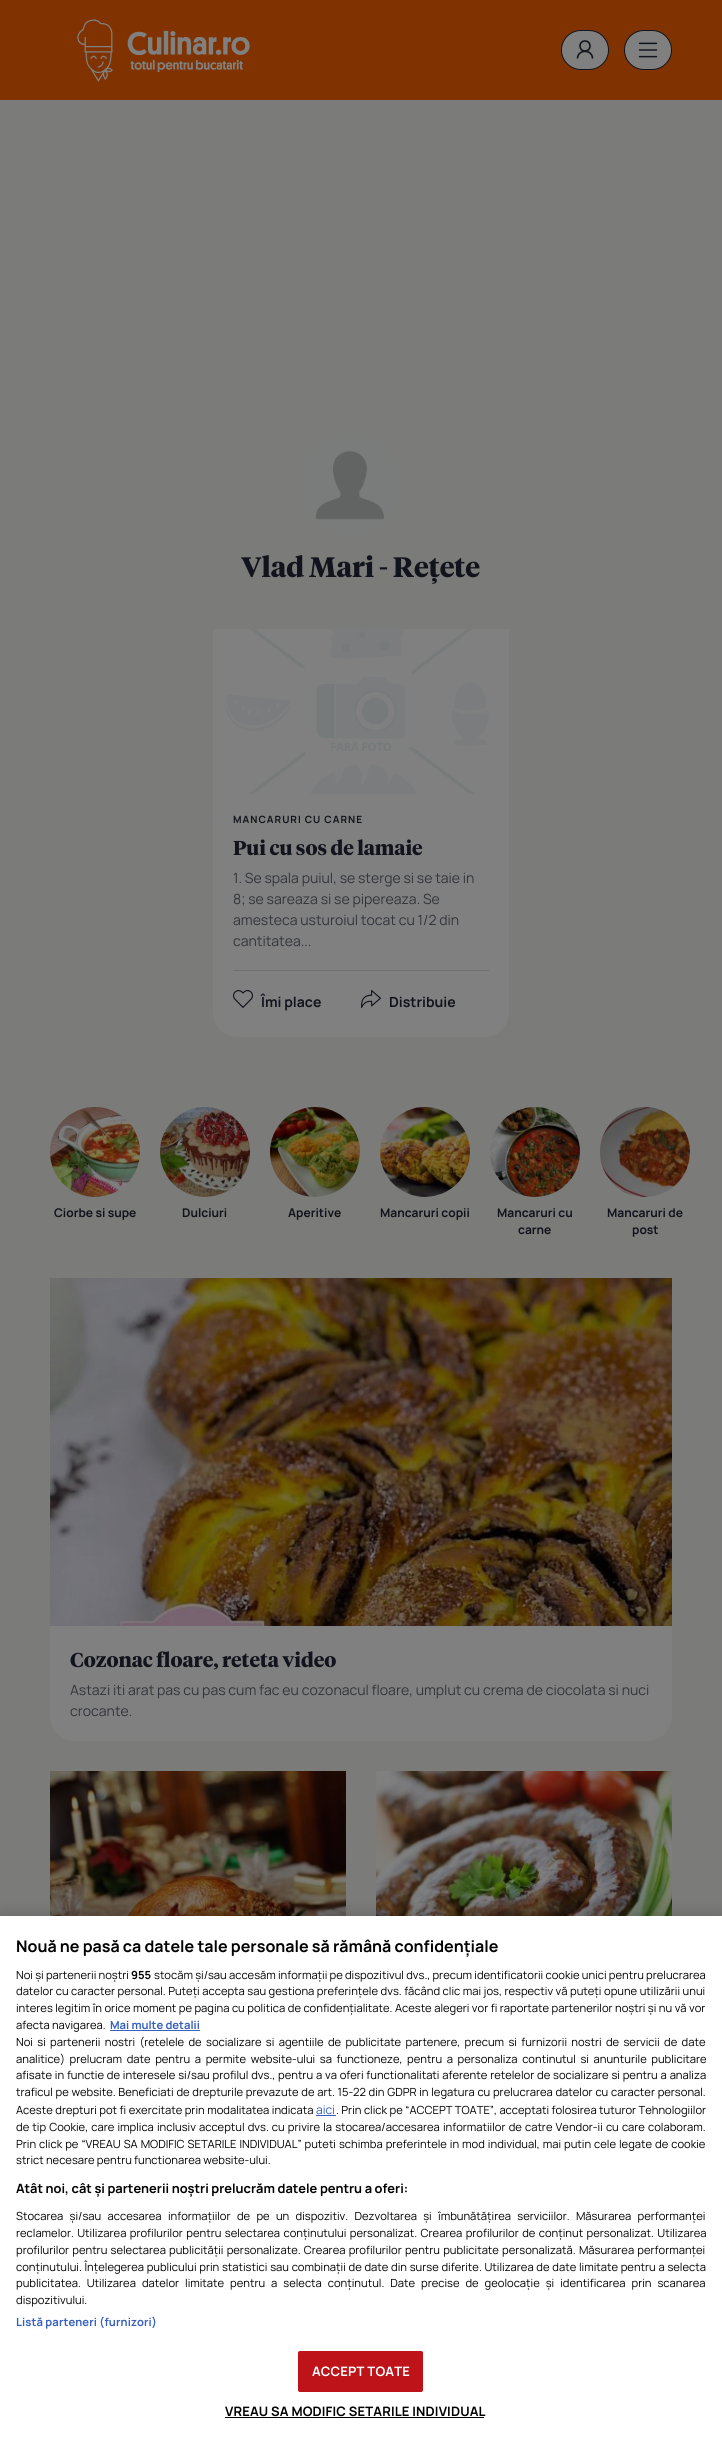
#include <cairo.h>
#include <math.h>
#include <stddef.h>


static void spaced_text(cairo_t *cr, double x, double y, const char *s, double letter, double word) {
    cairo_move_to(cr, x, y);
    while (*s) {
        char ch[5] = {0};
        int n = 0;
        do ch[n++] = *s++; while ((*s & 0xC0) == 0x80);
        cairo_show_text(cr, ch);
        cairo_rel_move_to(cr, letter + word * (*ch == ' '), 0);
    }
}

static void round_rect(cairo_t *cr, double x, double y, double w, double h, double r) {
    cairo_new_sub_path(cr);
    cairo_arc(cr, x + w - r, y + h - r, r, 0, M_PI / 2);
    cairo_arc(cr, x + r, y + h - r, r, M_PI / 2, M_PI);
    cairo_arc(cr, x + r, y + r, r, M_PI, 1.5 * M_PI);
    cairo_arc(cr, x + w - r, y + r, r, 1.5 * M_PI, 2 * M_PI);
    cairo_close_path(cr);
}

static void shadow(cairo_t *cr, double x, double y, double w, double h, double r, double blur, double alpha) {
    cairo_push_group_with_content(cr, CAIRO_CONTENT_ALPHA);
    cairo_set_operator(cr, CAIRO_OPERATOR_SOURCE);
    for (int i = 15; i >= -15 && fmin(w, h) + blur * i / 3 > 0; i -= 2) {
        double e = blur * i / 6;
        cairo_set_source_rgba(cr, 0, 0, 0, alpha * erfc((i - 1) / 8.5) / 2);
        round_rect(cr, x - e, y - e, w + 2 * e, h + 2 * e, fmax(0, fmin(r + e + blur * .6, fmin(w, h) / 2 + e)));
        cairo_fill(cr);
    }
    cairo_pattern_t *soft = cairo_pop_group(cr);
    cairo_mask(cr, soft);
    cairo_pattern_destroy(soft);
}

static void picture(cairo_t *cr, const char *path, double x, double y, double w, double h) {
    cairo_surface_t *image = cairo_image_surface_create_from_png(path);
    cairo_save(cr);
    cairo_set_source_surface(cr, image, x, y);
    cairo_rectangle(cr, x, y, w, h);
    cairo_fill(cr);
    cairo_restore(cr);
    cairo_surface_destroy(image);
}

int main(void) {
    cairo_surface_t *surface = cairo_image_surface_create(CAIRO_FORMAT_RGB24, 722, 2448);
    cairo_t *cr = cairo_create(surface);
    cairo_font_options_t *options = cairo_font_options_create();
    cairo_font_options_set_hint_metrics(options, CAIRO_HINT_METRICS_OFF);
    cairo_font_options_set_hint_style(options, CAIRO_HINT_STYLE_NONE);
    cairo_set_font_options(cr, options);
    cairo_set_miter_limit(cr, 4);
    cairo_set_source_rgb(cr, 0.482, 0.482, 0.475);
    cairo_paint(cr);
    cairo_set_source_rgb(cr, 0.502, 0.2, 0);
    cairo_rectangle(cr, 0, 0, 722, 100);
    cairo_fill(cr);
    picture(cr, "img1.png", 77, 19, 173, 63);
    cairo_set_source_rgb(cr, 0.502, 0.502, 0.502);
    round_rect(cr, 561.5, 30.5, 47, 39, 19.5);
    cairo_fill_preserve(cr);
    cairo_set_source_rgb(cr, 0.067, 0.082, 0.11);
    cairo_set_line_width(cr, 1);
    cairo_stroke(cr);
    cairo_arc(cr, 585, 46, 5, 0, 2 * M_PI);
    cairo_set_line_width(cr, 1.6);
    cairo_stroke(cr);
    cairo_new_path(cr);
    cairo_move_to(cr, 592.5, 58.5);
    cairo_curve_to(cr, 592.5, 49, 577.5, 49, 577.5, 58.5);
    cairo_stroke(cr);
    cairo_set_source_rgb(cr, 0.502, 0.502, 0.502);
    round_rect(cr, 624.5, 30.5, 47, 39, 19.5);
    cairo_fill_preserve(cr);
    cairo_set_source_rgb(cr, 0.067, 0.082, 0.11);
    cairo_set_line_width(cr, 1);
    cairo_stroke(cr);
    picture(cr, "img2.png", 638, 42, 20, 16);
    picture(cr, "img3.png", 301, 435, 100, 100);
    cairo_select_font_face(cr, "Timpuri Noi", CAIRO_FONT_SLANT_NORMAL, CAIRO_FONT_WEIGHT_BOLD);
    cairo_set_font_size(cr, 28);
    cairo_move_to(cr, 241, 577);
    cairo_show_text(cr, "Vlad Mari - Rețete");
    cairo_set_source_rgb(cr, 0.502, 0.502, 0.502);
    round_rect(cr, 213, 629, 296, 408, 25);
    cairo_fill(cr);
    picture(cr, "img4.png", 213, 629, 296, 165);
    cairo_select_font_face(cr, "Manrope", CAIRO_FONT_SLANT_NORMAL, CAIRO_FONT_WEIGHT_BOLD);
    cairo_set_font_size(cr, 10);
    cairo_set_source_rgb(cr, 0.067, 0.082, 0.11);
    spaced_text(cr, 233, 823, "MANCARURI CU CARNE", 1, 0);
    cairo_select_font_face(cr, "Timpuri Noi", CAIRO_FONT_SLANT_NORMAL, CAIRO_FONT_WEIGHT_BOLD);
    cairo_set_font_size(cr, 20);
    cairo_move_to(cr, 233, 855);
    cairo_show_text(cr, "Pui cu sos de lamaie");
    cairo_select_font_face(cr, "Manrope", CAIRO_FONT_SLANT_NORMAL, CAIRO_FONT_WEIGHT_NORMAL);
    cairo_set_font_size(cr, 14);
    cairo_set_source_rgb(cr, 0.196, 0.208, 0.227);
    cairo_move_to(cr, 233, 883);
    cairo_show_text(cr, "1. Se spala puiul, se sterge si se taie in");
    cairo_move_to(cr, 233, 904);
    cairo_show_text(cr, "8; se sareaza si se pipereaza. Se");
    cairo_move_to(cr, 233, 925);
    cairo_show_text(cr, "amesteca usturoiul tocat cu 1/2 din");
    cairo_move_to(cr, 233, 946);
    cairo_show_text(cr, "cantitatea...");
    cairo_set_source_rgb(cr, 0.435, 0.439, 0.443);
    cairo_rectangle(cr, 233, 970, 256, 1);
    cairo_fill(cr);
    picture(cr, "img5.png", 233, 990, 20, 18);
    cairo_select_font_face(cr, "Manrope", CAIRO_FONT_SLANT_NORMAL, CAIRO_FONT_WEIGHT_BOLD);
    cairo_set_source_rgb(cr, 0.067, 0.082, 0.11);
    cairo_move_to(cr, 261, 1007);
    cairo_show_text(cr, "Îmi place");
    picture(cr, "img6.png", 361, 990, 20, 18);
    cairo_move_to(cr, 389, 1007);
    cairo_show_text(cr, "Distribuie");
    picture(cr, "img7.png", 50, 1107, 90, 90);
    cairo_set_font_size(cr, 12);
    cairo_move_to(cr, 54, 1217);
    cairo_show_text(cr, "Ciorbe si supe");
    picture(cr, "img8.png", 160, 1107, 90, 90);
    cairo_move_to(cr, 182, 1217);
    cairo_show_text(cr, "Dulciuri");
    picture(cr, "img9.png", 270, 1107, 90, 90);
    cairo_move_to(cr, 288, 1217);
    cairo_show_text(cr, "Aperitive");
    picture(cr, "img10.png", 380, 1107, 90, 90);
    cairo_move_to(cr, 380, 1217);
    cairo_show_text(cr, "Mancaruri copii");
    picture(cr, "img11.png", 490, 1107, 90, 90);
    cairo_move_to(cr, 497, 1217);
    cairo_show_text(cr, "Mancaruri cu");
    cairo_move_to(cr, 518, 1234);
    cairo_show_text(cr, "carne");
    picture(cr, "img12.png", 600, 1107, 90, 90);
    cairo_move_to(cr, 607, 1217);
    cairo_show_text(cr, "Mancaruri de");
    cairo_move_to(cr, 632, 1234);
    cairo_show_text(cr, "post");
    cairo_set_source_rgb(cr, 0.502, 0.502, 0.502);
    round_rect(cr, 50, 1278, 622, 463, 25);
    cairo_fill(cr);
    picture(cr, "img13.png", 50, 1278, 622, 348);
    cairo_select_font_face(cr, "Timpuri Noi", CAIRO_FONT_SLANT_NORMAL, CAIRO_FONT_WEIGHT_BOLD);
    cairo_set_font_size(cr, 20);
    cairo_set_source_rgb(cr, 0.067, 0.082, 0.11);
    cairo_move_to(cr, 70, 1667);
    cairo_show_text(cr, "Cozonac floare, reteta video");
    cairo_select_font_face(cr, "Manrope", CAIRO_FONT_SLANT_NORMAL, CAIRO_FONT_WEIGHT_NORMAL);
    cairo_set_font_size(cr, 14);
    cairo_set_source_rgb(cr, 0.196, 0.208, 0.227);
    cairo_move_to(cr, 70, 1695);
    cairo_show_text(cr, "Astazi iti arat pas cu pas cum fac eu cozonacul floare, umplut cu crema de ciocolata si nuci");
    cairo_move_to(cr, 70, 1716);
    cairo_show_text(cr, "crocante.");
    picture(cr, "img14.png", 50, 1771, 296, 145);
    picture(cr, "img15.png", 376, 1771, 296, 145);
    cairo_set_source_rgb(cr, 0, 0, 0);
    shadow(cr, 0, 1916, 722, 532, 0, 9, 0.2);
    cairo_set_source_rgb(cr, 1, 1, 1);
    cairo_rectangle(cr, 0, 1916, 722, 532);
    cairo_fill(cr);
    cairo_select_font_face(cr, "Manrope", CAIRO_FONT_SLANT_NORMAL, CAIRO_FONT_WEIGHT_BOLD);
    cairo_set_font_size(cr, 16);
    cairo_set_source_rgb(cr, 0, 0, 0);
    cairo_move_to(cr, 16, 1952);
    cairo_show_text(cr, "Nouă ne pasă ca datele tale personale să rămână confidențiale");
    cairo_select_font_face(cr, "Manrope", CAIRO_FONT_SLANT_NORMAL, CAIRO_FONT_WEIGHT_NORMAL);
    cairo_set_font_size(cr, 11.2);
    cairo_move_to(cr, 16, 1979);
    cairo_show_text(cr, "Noi și partenerii noștri");
    cairo_select_font_face(cr, "Manrope", CAIRO_FONT_SLANT_NORMAL, CAIRO_FONT_WEIGHT_BOLD);
    cairo_move_to(cr, 131, 1979);
    cairo_show_text(cr, "955");
    cairo_select_font_face(cr, "Manrope", CAIRO_FONT_SLANT_NORMAL, CAIRO_FONT_WEIGHT_NORMAL);
    cairo_move_to(cr, 154, 1979);
    cairo_show_text(cr, "stocăm și/sau accesăm informații pe dispozitivul dvs., precum identificatorii cookie unici pentru prelucrarea");
    spaced_text(cr, 16, 1995, "datelor cu caracter personal. Puteți accepta sau gestiona preferințele dvs. făcând clic mai jos, respectiv vă puteți opune utilizării unui", 0, 0.3);
    spaced_text(cr, 16, 2012, "interes legitim în orice moment pe pagina cu politica de confidențialitate. Aceste alegeri vor fi raportate partenerilor noștri și nu vă vor", 0, 0.25);
    cairo_move_to(cr, 16, 2029);
    cairo_show_text(cr, "afecta navigarea.");
    cairo_select_font_face(cr, "Manrope", CAIRO_FONT_SLANT_NORMAL, CAIRO_FONT_WEIGHT_BOLD);
    cairo_set_source_rgb(cr, 0.22, 0.376, 0.745);
    cairo_move_to(cr, 110, 2029);
    cairo_show_text(cr, "Mai multe detalii");
    cairo_rectangle(cr, 110, 2030, 90, 1);
    cairo_fill(cr);
    cairo_select_font_face(cr, "Manrope", CAIRO_FONT_SLANT_NORMAL, CAIRO_FONT_WEIGHT_NORMAL);
    cairo_set_source_rgb(cr, 0, 0, 0);
    spaced_text(cr, 16, 2046, "Noi si partenerii nostri (retelele de socializare si agentiile de publicitate partenere, precum si furnizorii nostri de servicii de date", 0, 2.1);
    spaced_text(cr, 16, 2063, "analitice) prelucram date pentru a permite website-ului sa functioneze, pentru a personaliza continutul si anunturile publicitare", 0, 2.4);
    spaced_text(cr, 16, 2079, "afisate in functie de interesele si/sau profilul dvs., pentru a va oferi functionalitati aferente retelelor de socializare si pentru a analiza", 0, 0.6);
    spaced_text(cr, 16, 2096, "traficul pe website. Beneficiati de drepturile prevazute de art. 15-22 din GDPR in legatura cu prelucrarea datelor cu caracter personal.", 0, 0.5);
    spaced_text(cr, 16, 2114, "Aceste drepturi pot fi exercitate prin modalitatea indicata", 0, 0.25);
    cairo_set_font_size(cr, 12);
    cairo_set_source_rgb(cr, 0.22, 0.376, 0.745);
    cairo_move_to(cr, 316, 2114);
    cairo_show_text(cr, "aici");
    cairo_rectangle(cr, 316, 2115, 20, 1);
    cairo_fill(cr);
    cairo_set_font_size(cr, 11.2);
    cairo_set_source_rgb(cr, 0, 0, 0);
    spaced_text(cr, 336, 2114, ". Prin click pe “ACCEPT TOATE”, acceptati folosirea tuturor Tehnologiilor", 0, 0.25);
    spaced_text(cr, 16, 2131, "de tip Cookie, care implica inclusiv acceptul dvs. cu privire la stocarea/accesarea informatiilor de catre Vendor-ii cu care colaboram.", 0, 0.9);
    spaced_text(cr, 16, 2148, "Prin click pe “VREAU SA MODIFIC SETARILE INDIVIDUAL” puteti schimba preferintele in mod individual, mai putin cele legate de cookie", 0, 0.75);
    cairo_move_to(cr, 16, 2164);
    cairo_show_text(cr, "strict necesare pentru functionarea website-ului.");
    cairo_select_font_face(cr, "Manrope", CAIRO_FONT_SLANT_NORMAL, CAIRO_FONT_WEIGHT_BOLD);
    cairo_set_font_size(cr, 12.8);
    cairo_move_to(cr, 16, 2193);
    cairo_show_text(cr, "Atât noi, cât și partenerii noștri prelucrăm datele pentru a oferi:");
    cairo_select_font_face(cr, "Manrope", CAIRO_FONT_SLANT_NORMAL, CAIRO_FONT_WEIGHT_NORMAL);
    cairo_set_font_size(cr, 11.2);
    spaced_text(cr, 16, 2220, "Stocarea și/sau accesarea informațiilor de pe un dispozitiv. Dezvoltarea și îmbunătățirea serviciilor. Măsurarea performanței", 0, 4.1);
    spaced_text(cr, 16, 2237, "reclamelor. Utilizarea profilurilor pentru selectarea conținutului personalizat. Crearea profilurilor de conținut personalizat. Utilizarea", 0, 1.2);
    spaced_text(cr, 16, 2254, "profilurilor pentru selectarea publicității personalizate. Crearea profilurilor pentru publicitate personalizată. Măsurarea performanței", 0, 1);
    spaced_text(cr, 16, 2271, "conținutului. Înțelegerea publicului prin statistici sau combinații de date din surse diferite. Utilizarea de date limitate pentru a selecta", 0, 0.5);
    spaced_text(cr, 16, 2287, "publicitatea. Utilizarea datelor limitate pentru a selecta conținutul. Date precise de geolocație și identificarea prin scanarea", 0, 3.75);
    cairo_move_to(cr, 16, 2304);
    cairo_show_text(cr, "dispozitivului.");
    cairo_select_font_face(cr, "Manrope", CAIRO_FONT_SLANT_NORMAL, CAIRO_FONT_WEIGHT_BOLD);
    cairo_set_source_rgb(cr, 0.22, 0.376, 0.745);
    spaced_text(cr, 16, 2326, "Listă parteneri (furnizori)", 0.1, 0);
    cairo_set_source_rgb(cr, 0.749, 0.078, 0.102);
    round_rect(cr, 298.5, 2351.5, 124, 40, 1.5);
    cairo_fill_preserve(cr);
    cairo_stroke(cr);
    cairo_set_font_size(cr, 13);
    cairo_set_source_rgb(cr, 1, 1, 1);
    spaced_text(cr, 312, 2376, "ACCEPT TOATE", 0.15, 0);
    cairo_set_source_rgb(cr, 0, 0, 0);
    spaced_text(cr, 225, 2416, "VREAU SA MODIFIC SETARILE INDIVIDUAL", 0.15, 0);
    cairo_rectangle(cr, 225, 2417, 259, 1);
    cairo_fill(cr);
    cairo_surface_write_to_png(surface, "page.png");
    cairo_font_options_destroy(options);
    cairo_destroy(cr);
    cairo_surface_destroy(surface);
    return 0;
}
